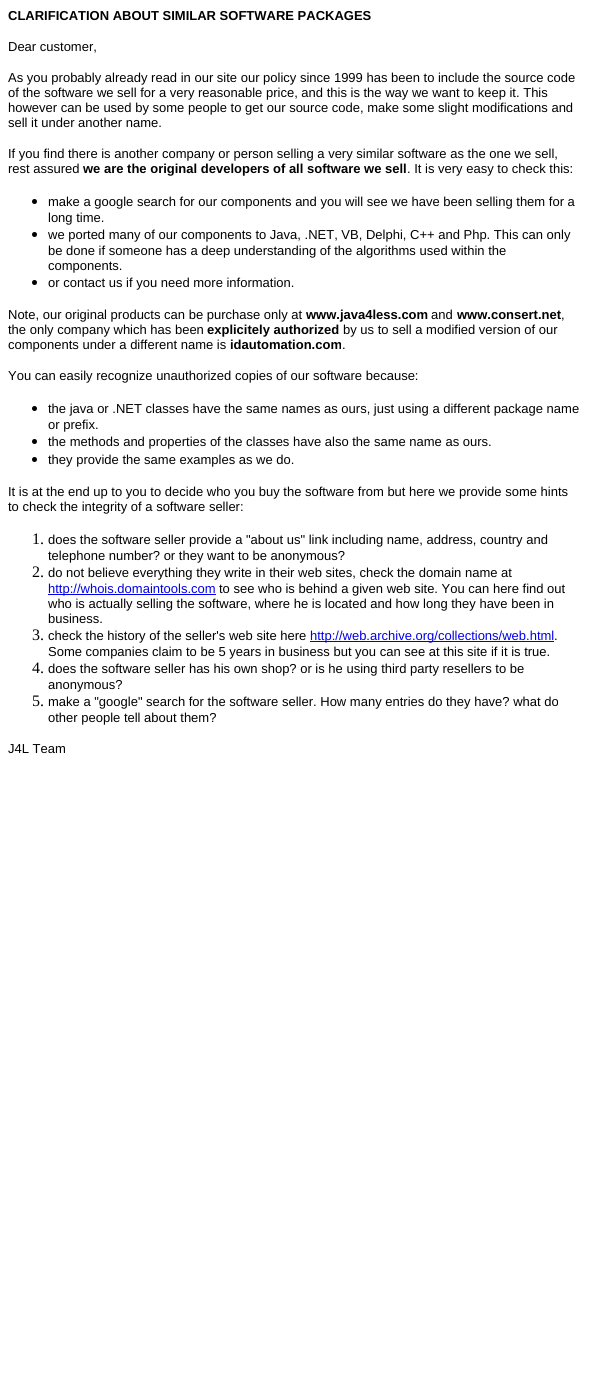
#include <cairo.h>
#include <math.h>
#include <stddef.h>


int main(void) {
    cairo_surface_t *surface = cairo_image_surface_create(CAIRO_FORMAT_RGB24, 590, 1376);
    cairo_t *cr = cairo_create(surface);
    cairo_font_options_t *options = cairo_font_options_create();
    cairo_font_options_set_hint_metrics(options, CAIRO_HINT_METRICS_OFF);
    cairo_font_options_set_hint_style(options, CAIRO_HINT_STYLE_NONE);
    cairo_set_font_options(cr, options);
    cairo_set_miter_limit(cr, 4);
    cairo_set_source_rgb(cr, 1, 1, 1);
    cairo_paint(cr);
    cairo_select_font_face(cr, "Liberation Sans", CAIRO_FONT_SLANT_NORMAL, CAIRO_FONT_WEIGHT_BOLD);
    cairo_set_font_size(cr, 13);
    cairo_set_source_rgb(cr, 0, 0, 0);
    cairo_move_to(cr, 8, 20);
    cairo_show_text(cr, "CLARIFICATION ABOUT SIMILAR SOFTWARE PACKAGES");
    cairo_select_font_face(cr, "Liberation Sans", CAIRO_FONT_SLANT_NORMAL, CAIRO_FONT_WEIGHT_NORMAL);
    cairo_move_to(cr, 8, 51);
    cairo_show_text(cr, "Dear customer,");
    cairo_move_to(cr, 8, 82);
    cairo_show_text(cr, "As you probably already read in our site our policy since 1999 has been to include the source code");
    cairo_move_to(cr, 8, 97);
    cairo_show_text(cr, "of the software we sell for a very reasonable price, and this is the way we want to keep it. This");
    cairo_move_to(cr, 8, 112);
    cairo_show_text(cr, "however can be used by some people to get our source code, make some slight modifications and");
    cairo_move_to(cr, 8, 127);
    cairo_show_text(cr, "sell it under another name.");
    cairo_move_to(cr, 8, 158);
    cairo_show_text(cr, "If you find there is another company or person selling a very similar software as the one we sell,");
    cairo_move_to(cr, 8, 173);
    cairo_show_text(cr, "rest assured");
    cairo_select_font_face(cr, "Liberation Sans", CAIRO_FONT_SLANT_NORMAL, CAIRO_FONT_WEIGHT_BOLD);
    cairo_move_to(cr, 83, 173);
    cairo_show_text(cr, "we are the original developers of all software we sell");
    cairo_select_font_face(cr, "Liberation Sans", CAIRO_FONT_SLANT_NORMAL, CAIRO_FONT_WEIGHT_NORMAL);
    cairo_move_to(cr, 407, 173);
    cairo_show_text(cr, ". It is very easy to check this:");
    cairo_new_path(cr);
    cairo_arc(cr, 34.5, 201.5, 2.5, 0, 2 * M_PI);
    cairo_fill(cr);
    cairo_move_to(cr, 48, 206);
    cairo_show_text(cr, "make a google search for our components and you will see we have been selling them for a");
    cairo_move_to(cr, 48, 222);
    cairo_show_text(cr, "long time.");
    cairo_new_path(cr);
    cairo_arc(cr, 34.5, 234.5, 2.5, 0, 2 * M_PI);
    cairo_fill(cr);
    cairo_move_to(cr, 48, 239);
    cairo_show_text(cr, "we ported many of our components to Java, .NET, VB, Delphi, C++ and Php. This can only");
    cairo_move_to(cr, 48, 255);
    cairo_show_text(cr, "be done if someone has a deep understanding of the algorithms used within the");
    cairo_move_to(cr, 48, 270);
    cairo_show_text(cr, "components.");
    cairo_new_path(cr);
    cairo_arc(cr, 34.5, 282.5, 2.5, 0, 2 * M_PI);
    cairo_fill(cr);
    cairo_move_to(cr, 48, 287);
    cairo_show_text(cr, "or contact us if you need more information.");
    cairo_move_to(cr, 8, 319);
    cairo_show_text(cr, "Note, our original products can be purchase only at");
    cairo_select_font_face(cr, "Liberation Sans", CAIRO_FONT_SLANT_NORMAL, CAIRO_FONT_WEIGHT_BOLD);
    cairo_move_to(cr, 306, 319);
    cairo_show_text(cr, "www.java4less.com");
    cairo_select_font_face(cr, "Liberation Sans", CAIRO_FONT_SLANT_NORMAL, CAIRO_FONT_WEIGHT_NORMAL);
    cairo_move_to(cr, 431, 319);
    cairo_show_text(cr, "and");
    cairo_select_font_face(cr, "Liberation Sans", CAIRO_FONT_SLANT_NORMAL, CAIRO_FONT_WEIGHT_BOLD);
    cairo_move_to(cr, 457, 319);
    cairo_show_text(cr, "www.consert.net");
    cairo_select_font_face(cr, "Liberation Sans", CAIRO_FONT_SLANT_NORMAL, CAIRO_FONT_WEIGHT_NORMAL);
    cairo_move_to(cr, 561, 319);
    cairo_show_text(cr, ",");
    cairo_move_to(cr, 8, 334);
    cairo_show_text(cr, "the only company which has been");
    cairo_select_font_face(cr, "Liberation Sans", CAIRO_FONT_SLANT_NORMAL, CAIRO_FONT_WEIGHT_BOLD);
    cairo_move_to(cr, 207, 334);
    cairo_show_text(cr, "explicitely authorized");
    cairo_select_font_face(cr, "Liberation Sans", CAIRO_FONT_SLANT_NORMAL, CAIRO_FONT_WEIGHT_NORMAL);
    cairo_move_to(cr, 343, 334);
    cairo_show_text(cr, "by us to sell a modified version of our");
    cairo_move_to(cr, 8, 349);
    cairo_show_text(cr, "components under a different name is");
    cairo_select_font_face(cr, "Liberation Sans", CAIRO_FONT_SLANT_NORMAL, CAIRO_FONT_WEIGHT_BOLD);
    cairo_move_to(cr, 230, 349);
    cairo_show_text(cr, "idautomation.com");
    cairo_select_font_face(cr, "Liberation Sans", CAIRO_FONT_SLANT_NORMAL, CAIRO_FONT_WEIGHT_NORMAL);
    cairo_move_to(cr, 342, 349);
    cairo_show_text(cr, ".");
    cairo_move_to(cr, 8, 380);
    cairo_show_text(cr, "You can easily recognize unauthorized copies of our software because:");
    cairo_new_path(cr);
    cairo_arc(cr, 34.5, 408.5, 2.5, 0, 2 * M_PI);
    cairo_fill(cr);
    cairo_move_to(cr, 48, 413);
    cairo_show_text(cr, "the java or .NET classes have the same names as ours, just using a different package name");
    cairo_move_to(cr, 48, 429);
    cairo_show_text(cr, "or prefix.");
    cairo_new_path(cr);
    cairo_arc(cr, 34.5, 441.5, 2.5, 0, 2 * M_PI);
    cairo_fill(cr);
    cairo_move_to(cr, 48, 446);
    cairo_show_text(cr, "the methods and properties of the classes have also the same name as ours.");
    cairo_new_path(cr);
    cairo_arc(cr, 34.5, 459.5, 2.5, 0, 2 * M_PI);
    cairo_fill(cr);
    cairo_move_to(cr, 48, 464);
    cairo_show_text(cr, "they provide the same examples as we do.");
    cairo_move_to(cr, 8, 496);
    cairo_show_text(cr, "It is at the end up to you to decide who you buy the software from but here we provide some hints");
    cairo_move_to(cr, 8, 511);
    cairo_show_text(cr, "to check the integrity of a software seller:");
    cairo_select_font_face(cr, "Liberation Serif", CAIRO_FONT_SLANT_NORMAL, CAIRO_FONT_WEIGHT_NORMAL);
    cairo_set_font_size(cr, 16);
    cairo_move_to(cr, 32, 544);
    cairo_show_text(cr, "1.");
    cairo_select_font_face(cr, "Liberation Sans", CAIRO_FONT_SLANT_NORMAL, CAIRO_FONT_WEIGHT_NORMAL);
    cairo_set_font_size(cr, 13);
    cairo_move_to(cr, 48, 544);
    cairo_show_text(cr, "does the software seller provide a \"about us\" link including name, address, country and");
    cairo_move_to(cr, 48, 560);
    cairo_show_text(cr, "telephone number? or they want to be anonymous?");
    cairo_select_font_face(cr, "Liberation Serif", CAIRO_FONT_SLANT_NORMAL, CAIRO_FONT_WEIGHT_NORMAL);
    cairo_set_font_size(cr, 16);
    cairo_move_to(cr, 32, 577);
    cairo_show_text(cr, "2.");
    cairo_select_font_face(cr, "Liberation Sans", CAIRO_FONT_SLANT_NORMAL, CAIRO_FONT_WEIGHT_NORMAL);
    cairo_set_font_size(cr, 13);
    cairo_move_to(cr, 48, 577);
    cairo_show_text(cr, "do not believe everything they write in their web sites, check the domain name at");
    cairo_set_source_rgb(cr, 0, 0, 0.933);
    cairo_rectangle(cr, 48, 594, 168, 1);
    cairo_fill(cr);
    cairo_move_to(cr, 48, 593);
    cairo_show_text(cr, "http://whois.domaintools.com");
    cairo_set_source_rgb(cr, 0, 0, 0);
    cairo_move_to(cr, 219, 593);
    cairo_show_text(cr, "to see who is behind a given web site. You can here find out");
    cairo_move_to(cr, 48, 608);
    cairo_show_text(cr, "who is actually selling the software, where he is located and how long they have been in");
    cairo_move_to(cr, 48, 623);
    cairo_show_text(cr, "business.");
    cairo_select_font_face(cr, "Liberation Serif", CAIRO_FONT_SLANT_NORMAL, CAIRO_FONT_WEIGHT_NORMAL);
    cairo_set_font_size(cr, 16);
    cairo_move_to(cr, 32, 640);
    cairo_show_text(cr, "3.");
    cairo_select_font_face(cr, "Liberation Sans", CAIRO_FONT_SLANT_NORMAL, CAIRO_FONT_WEIGHT_NORMAL);
    cairo_set_font_size(cr, 13);
    cairo_move_to(cr, 48, 640);
    cairo_show_text(cr, "check the history of the seller's web site here");
    cairo_set_source_rgb(cr, 0, 0, 0.933);
    cairo_rectangle(cr, 310, 641, 244, 1);
    cairo_fill(cr);
    cairo_move_to(cr, 310, 640);
    cairo_show_text(cr, "http://web.archive.org/collections/web.html");
    cairo_set_source_rgb(cr, 0, 0, 0);
    cairo_move_to(cr, 554, 640);
    cairo_show_text(cr, ".");
    cairo_move_to(cr, 48, 656);
    cairo_show_text(cr, "Some companies claim to be 5 years in business but you can see at this site if it is true.");
    cairo_select_font_face(cr, "Liberation Serif", CAIRO_FONT_SLANT_NORMAL, CAIRO_FONT_WEIGHT_NORMAL);
    cairo_set_font_size(cr, 16);
    cairo_move_to(cr, 32, 673);
    cairo_show_text(cr, "4.");
    cairo_select_font_face(cr, "Liberation Sans", CAIRO_FONT_SLANT_NORMAL, CAIRO_FONT_WEIGHT_NORMAL);
    cairo_set_font_size(cr, 13);
    cairo_move_to(cr, 48, 673);
    cairo_show_text(cr, "does the software seller has his own shop? or is he using third party resellers to be");
    cairo_move_to(cr, 48, 689);
    cairo_show_text(cr, "anonymous?");
    cairo_select_font_face(cr, "Liberation Serif", CAIRO_FONT_SLANT_NORMAL, CAIRO_FONT_WEIGHT_NORMAL);
    cairo_set_font_size(cr, 16);
    cairo_move_to(cr, 32, 706);
    cairo_show_text(cr, "5.");
    cairo_select_font_face(cr, "Liberation Sans", CAIRO_FONT_SLANT_NORMAL, CAIRO_FONT_WEIGHT_NORMAL);
    cairo_set_font_size(cr, 13);
    cairo_move_to(cr, 48, 706);
    cairo_show_text(cr, "make a \"google\" search for the software seller. How many entries do they have? what do");
    cairo_move_to(cr, 48, 722);
    cairo_show_text(cr, "other people tell about them?");
    cairo_move_to(cr, 8, 753);
    cairo_show_text(cr, "J4L Team");
    cairo_surface_write_to_png(surface, "page.png");
    cairo_font_options_destroy(options);
    cairo_destroy(cr);
    cairo_surface_destroy(surface);
    return 0;
}
